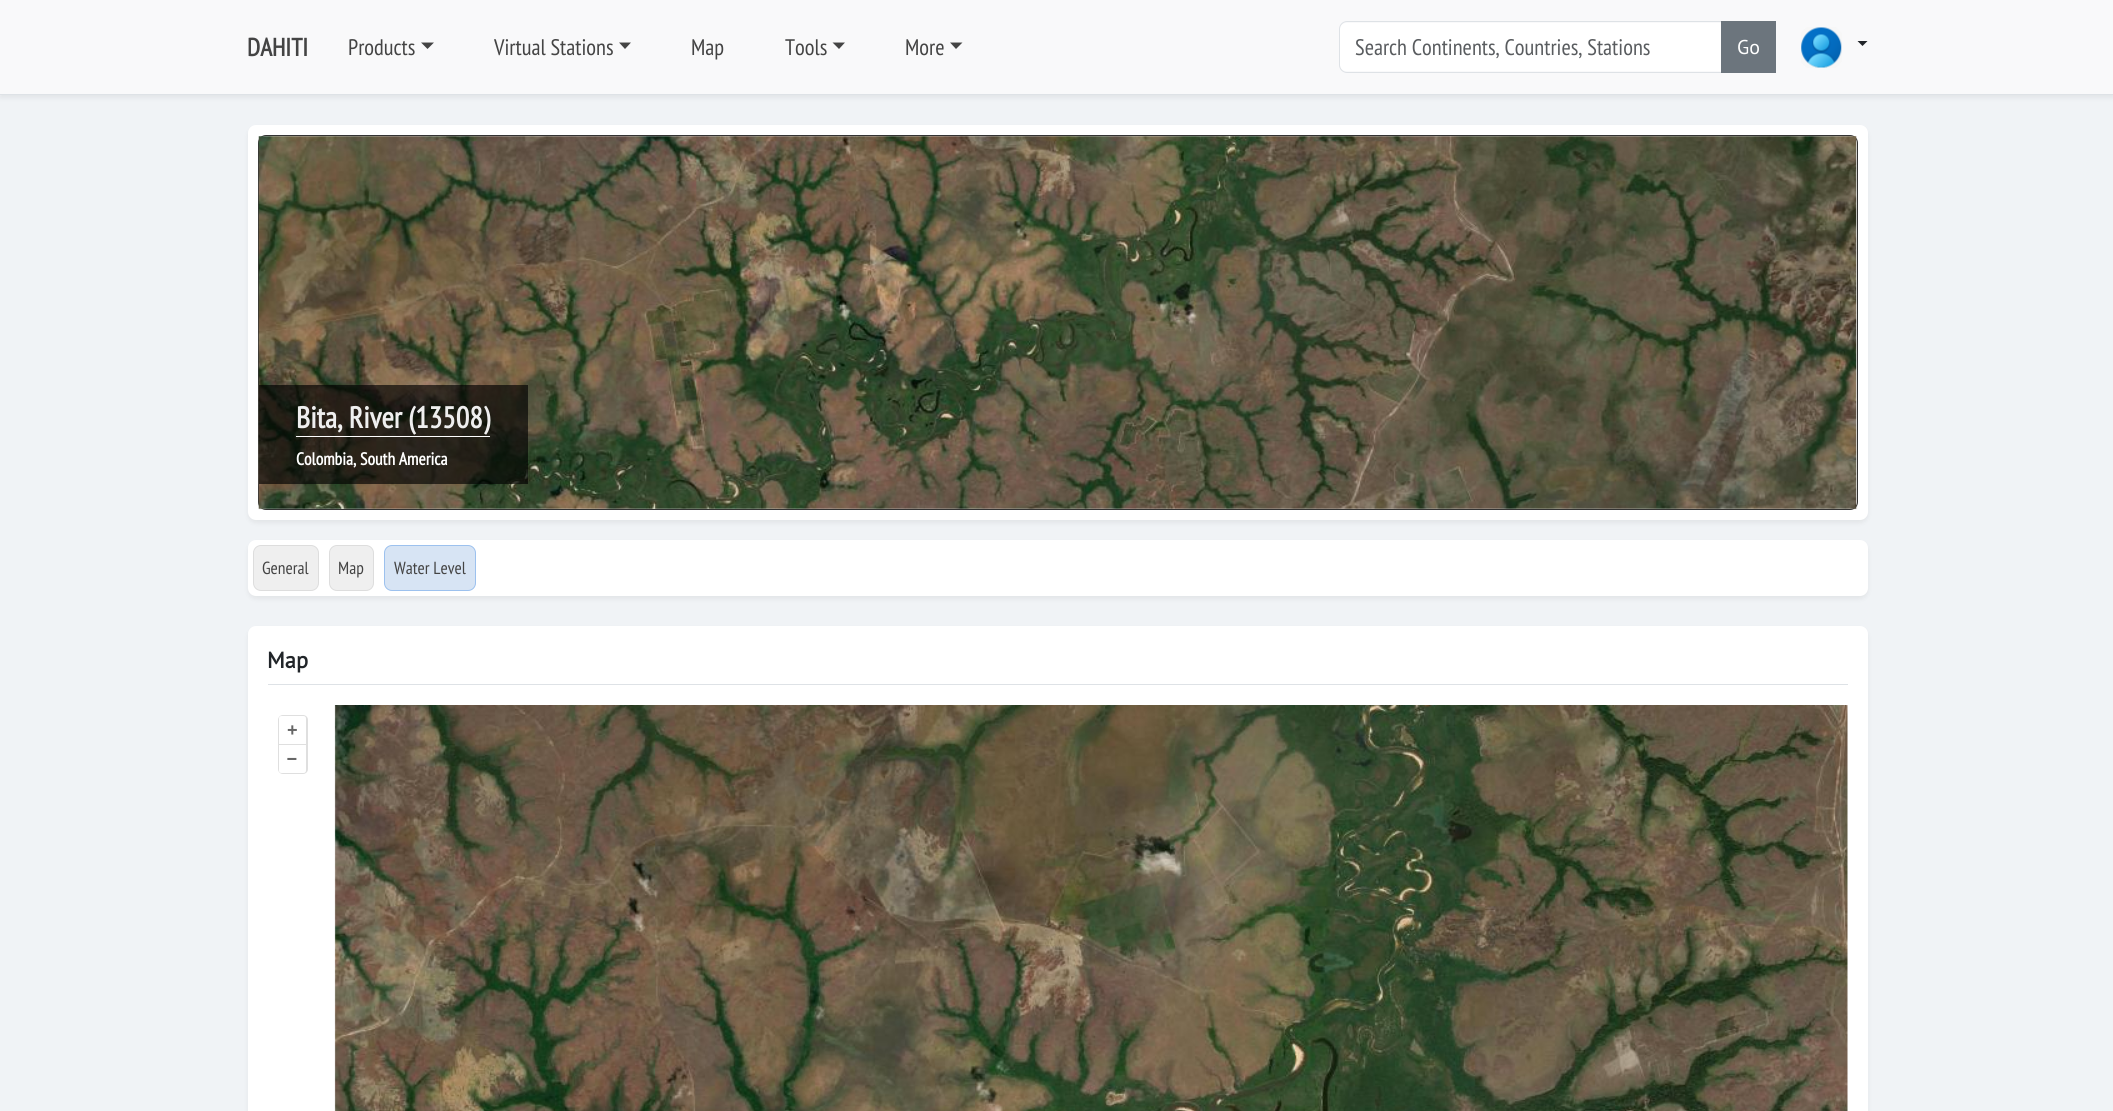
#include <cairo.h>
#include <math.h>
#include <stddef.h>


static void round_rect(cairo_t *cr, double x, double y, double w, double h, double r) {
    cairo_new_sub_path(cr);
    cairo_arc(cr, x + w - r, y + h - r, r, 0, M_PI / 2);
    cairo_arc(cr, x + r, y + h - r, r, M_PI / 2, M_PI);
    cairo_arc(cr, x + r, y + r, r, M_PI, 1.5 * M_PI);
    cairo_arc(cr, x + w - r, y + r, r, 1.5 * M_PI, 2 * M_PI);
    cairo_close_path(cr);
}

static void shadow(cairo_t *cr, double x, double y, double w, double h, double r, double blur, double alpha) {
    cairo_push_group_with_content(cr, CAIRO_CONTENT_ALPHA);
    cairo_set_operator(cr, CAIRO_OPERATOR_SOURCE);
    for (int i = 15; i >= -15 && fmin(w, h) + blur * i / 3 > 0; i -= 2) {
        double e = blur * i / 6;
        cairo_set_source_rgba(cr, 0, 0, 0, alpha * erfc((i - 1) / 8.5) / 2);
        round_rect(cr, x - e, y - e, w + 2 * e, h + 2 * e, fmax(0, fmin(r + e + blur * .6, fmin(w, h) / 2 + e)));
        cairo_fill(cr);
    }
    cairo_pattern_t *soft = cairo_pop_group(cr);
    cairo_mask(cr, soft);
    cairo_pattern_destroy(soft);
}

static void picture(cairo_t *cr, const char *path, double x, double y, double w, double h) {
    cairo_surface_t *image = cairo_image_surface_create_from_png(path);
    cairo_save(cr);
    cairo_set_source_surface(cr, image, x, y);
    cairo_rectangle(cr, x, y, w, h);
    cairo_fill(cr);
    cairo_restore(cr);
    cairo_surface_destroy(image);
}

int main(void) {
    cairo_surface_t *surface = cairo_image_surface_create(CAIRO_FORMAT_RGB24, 2113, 1111);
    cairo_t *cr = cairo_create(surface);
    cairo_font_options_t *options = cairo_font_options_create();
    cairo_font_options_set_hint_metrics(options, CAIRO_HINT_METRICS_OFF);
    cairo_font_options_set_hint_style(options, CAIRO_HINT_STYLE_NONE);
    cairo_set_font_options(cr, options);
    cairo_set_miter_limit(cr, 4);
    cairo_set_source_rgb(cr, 0.941, 0.953, 0.961);
    cairo_paint(cr);
    cairo_set_source_rgb(cr, 0.129, 0.145, 0.161);
    shadow(cr, 0, 3, 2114, 95, 0, 2.5, 0.07);
    cairo_set_source_rgb(cr, 0.973, 0.976, 0.98);
    cairo_rectangle(cr, 0, 0, 2113, 94);
    cairo_fill(cr);
    cairo_set_source_rgb(cr, 0.871, 0.886, 0.902);
    cairo_rectangle(cr, 0, 94, 2113, 1);
    cairo_fill(cr);
    cairo_select_font_face(cr, "PT Sans Narrow", CAIRO_FONT_SLANT_NORMAL, CAIRO_FONT_WEIGHT_BOLD);
    cairo_set_font_size(cr, 25);
    cairo_set_source_rgb(cr, 0.267, 0.267, 0.267);
    cairo_move_to(cr, 247, 56);
    cairo_show_text(cr, "DAHITI");
    cairo_select_font_face(cr, "PT Sans Narrow", CAIRO_FONT_SLANT_NORMAL, CAIRO_FONT_WEIGHT_NORMAL);
    cairo_set_font_size(cr, 22.5);
    cairo_move_to(cr, 348, 55);
    cairo_show_text(cr, "Products");
    cairo_new_path(cr);
    cairo_move_to(cr, 421, 42.5);
    cairo_line_to(cr, 434, 42.5);
    cairo_line_to(cr, 427.5, 49);
    cairo_close_path(cr);
    cairo_fill(cr);
    cairo_move_to(cr, 494, 55);
    cairo_show_text(cr, "Virtual Stations");
    cairo_new_path(cr);
    cairo_move_to(cr, 619, 42.5);
    cairo_line_to(cr, 631, 42.5);
    cairo_line_to(cr, 625, 49);
    cairo_close_path(cr);
    cairo_fill(cr);
    cairo_move_to(cr, 691, 55);
    cairo_show_text(cr, "Map");
    cairo_move_to(cr, 785, 55);
    cairo_show_text(cr, "Tools");
    cairo_new_path(cr);
    cairo_move_to(cr, 832.5, 42.5);
    cairo_line_to(cr, 845, 42.5);
    cairo_line_to(cr, 839, 49);
    cairo_close_path(cr);
    cairo_fill(cr);
    cairo_move_to(cr, 905, 55);
    cairo_show_text(cr, "More");
    cairo_new_path(cr);
    cairo_move_to(cr, 950, 42.5);
    cairo_line_to(cr, 962.5, 42.5);
    cairo_line_to(cr, 956, 49);
    cairo_close_path(cr);
    cairo_fill(cr);
    cairo_set_source_rgb(cr, 1, 1, 1);
    cairo_new_path(cr);
    cairo_move_to(cr, 1346, 23);
    cairo_line_to(cr, 1721, 23);
    cairo_line_to(cr, 1721, 71);
    cairo_line_to(cr, 1346, 71);
    cairo_curve_to(cr, 1342.5, 71, 1340, 68.5, 1340, 65);
    cairo_line_to(cr, 1340, 29);
    cairo_curve_to(cr, 1340, 25.5, 1342.5, 23, 1346, 23);
    cairo_close_path(cr);
    cairo_fill(cr);
    cairo_new_path(cr);
    cairo_move_to(cr, 1347, 21.5);
    cairo_line_to(cr, 1722.5, 21.5);
    cairo_line_to(cr, 1722.5, 72.5);
    cairo_line_to(cr, 1347, 72.5);
    cairo_curve_to(cr, 1343, 72.5, 1339.5, 69, 1339.5, 65);
    cairo_line_to(cr, 1339.5, 29);
    cairo_curve_to(cr, 1339.5, 25, 1343, 21.5, 1347, 21.5);
    cairo_close_path(cr);
    cairo_set_source_rgb(cr, 0.871, 0.886, 0.902);
    cairo_set_line_width(cr, 1);
    cairo_stroke(cr);
    cairo_set_source_rgb(cr, 0.349, 0.361, 0.373);
    cairo_move_to(cr, 1355, 55);
    cairo_show_text(cr, "Search Continents, Countries, Stations");
    cairo_set_source_rgb(cr, 0.424, 0.459, 0.49);
    cairo_rectangle(cr, 1721, 21, 55, 52);
    cairo_fill(cr);
    cairo_select_font_face(cr, "PT Sans", CAIRO_FONT_SLANT_NORMAL, CAIRO_FONT_WEIGHT_NORMAL);
    cairo_set_font_size(cr, 20);
    cairo_set_source_rgb(cr, 1, 1, 1);
    cairo_move_to(cr, 1737, 54);
    cairo_show_text(cr, "Go");
    picture(cr, "img1.png", 1801, 27, 41, 41);
    cairo_set_source_rgb(cr, 0.129, 0.145, 0.161);
    cairo_new_path(cr);
    cairo_move_to(cr, 1857.5, 41);
    cairo_line_to(cr, 1867.5, 41);
    cairo_line_to(cr, 1862.5, 46);
    cairo_close_path(cr);
    cairo_fill(cr);
    cairo_set_source_rgb(cr, 0.129, 0.145, 0.161);
    shadow(cr, 248, 128, 1620, 395, 8, 2.5, 0.07);
    cairo_set_source_rgb(cr, 1, 1, 1);
    round_rect(cr, 248, 125, 1620, 395, 8);
    cairo_fill(cr);
    cairo_save(cr);
    cairo_rectangle(cr, 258, 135, 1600, 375);
    cairo_clip(cr);
    cairo_set_source_rgb(cr, 0.129, 0.145, 0.161);
    shadow(cr, 258, 138, 1600, 375, 8, 2.5, 0.07);
    cairo_restore(cr);
    cairo_set_source_rgb(cr, 0.937, 0.937, 0.937);
    round_rect(cr, 258.5, 135.5, 1599, 374, 7.5);
    cairo_fill_preserve(cr);
    cairo_set_source_rgb(cr, 0.2, 0.2, 0.2);
    cairo_stroke(cr);
    picture(cr, "img2.png", 258, 136, 1599, 373);
    cairo_set_source_rgba(cr, 0, 0, 0, 0.65);
    cairo_rectangle(cr, 259, 385, 269, 99);
    cairo_fill(cr);
    cairo_select_font_face(cr, "PT Sans Narrow", CAIRO_FONT_SLANT_NORMAL, CAIRO_FONT_WEIGHT_BOLD);
    cairo_set_font_size(cr, 30);
    cairo_set_source_rgb(cr, 0.937, 0.937, 0.937);
    cairo_move_to(cr, 296, 428);
    cairo_show_text(cr, "Bita, River (13508)");
    cairo_set_source_rgb(cr, 1, 1, 1);
    cairo_rectangle(cr, 296, 436, 194, 1);
    cairo_fill(cr);
    cairo_set_font_size(cr, 17.5);
    cairo_move_to(cr, 296, 465);
    cairo_show_text(cr, "Colombia, South America");
    cairo_set_source_rgb(cr, 0.129, 0.145, 0.161);
    shadow(cr, 248, 543, 1620, 56, 8, 2.5, 0.07);
    cairo_set_source_rgb(cr, 1, 1, 1);
    round_rect(cr, 248, 540, 1620, 56, 8);
    cairo_fill(cr);
    cairo_set_source_rgb(cr, 0.937, 0.937, 0.937);
    round_rect(cr, 253.5, 545.5, 65, 45, 7.5);
    cairo_fill_preserve(cr);
    cairo_set_source_rgb(cr, 0.867, 0.867, 0.867);
    cairo_stroke(cr);
    cairo_select_font_face(cr, "PT Sans Narrow", CAIRO_FONT_SLANT_NORMAL, CAIRO_FONT_WEIGHT_NORMAL);
    cairo_set_source_rgb(cr, 0.267, 0.267, 0.267);
    cairo_move_to(cr, 262, 574);
    cairo_show_text(cr, "General");
    cairo_set_source_rgb(cr, 0.937, 0.937, 0.937);
    round_rect(cr, 329.5, 545.5, 44, 45, 7.5);
    cairo_fill_preserve(cr);
    cairo_set_source_rgb(cr, 0.867, 0.867, 0.867);
    cairo_stroke(cr);
    cairo_set_source_rgb(cr, 0.267, 0.267, 0.267);
    cairo_move_to(cr, 338, 574);
    cairo_show_text(cr, "Map");
    cairo_set_source_rgb(cr, 0.843, 0.894, 0.957);
    round_rect(cr, 384.5, 545.5, 91, 45, 7.5);
    cairo_fill_preserve(cr);
    cairo_set_source_rgb(cr, 0.612, 0.757, 0.933);
    cairo_stroke(cr);
    cairo_set_source_rgb(cr, 0.267, 0.267, 0.267);
    cairo_move_to(cr, 394, 574);
    cairo_show_text(cr, "Water Level");
    cairo_set_source_rgb(cr, 0.129, 0.145, 0.161);
    shadow(cr, 248, 629, 1620, 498, 8, 2.5, 0.07);
    cairo_set_source_rgb(cr, 1, 1, 1);
    round_rect(cr, 248, 626, 1620, 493, 8);
    cairo_fill(cr);
    cairo_set_source_rgb(cr, 0.871, 0.886, 0.902);
    cairo_rectangle(cr, 268, 684, 1580, 1);
    cairo_fill(cr);
    cairo_select_font_face(cr, "PT Sans", CAIRO_FONT_SLANT_NORMAL, CAIRO_FONT_WEIGHT_BOLD);
    cairo_set_font_size(cr, 22.5);
    cairo_set_source_rgb(cr, 0.129, 0.145, 0.161);
    cairo_move_to(cr, 267, 668);
    cairo_show_text(cr, "Map");
    cairo_set_source_rgb(cr, 0.875, 0.875, 0.875);
    round_rect(cr, 278, 715, 30, 59, 5);
    cairo_fill(cr);
    cairo_set_source_rgb(cr, 1, 1, 1);
    cairo_new_path(cr);
    cairo_move_to(cr, 281.5, 716);
    cairo_line_to(cr, 303.5, 716);
    cairo_curve_to(cr, 305, 716, 306, 717, 306, 718.5);
    cairo_line_to(cr, 306, 744);
    cairo_line_to(cr, 279, 744);
    cairo_line_to(cr, 279, 718.5);
    cairo_curve_to(cr, 279, 717, 280, 716, 281.5, 716);
    cairo_close_path(cr);
    cairo_fill(cr);
    cairo_set_font_size(cr, 20);
    cairo_set_source_rgb(cr, 0.4, 0.4, 0.4);
    cairo_move_to(cr, 287, 737);
    cairo_show_text(cr, "+");
    cairo_set_source_rgb(cr, 1, 1, 1);
    cairo_new_path(cr);
    cairo_move_to(cr, 279, 745);
    cairo_line_to(cr, 306, 745);
    cairo_line_to(cr, 306, 770.5);
    cairo_curve_to(cr, 306, 772, 305, 773, 303.5, 773);
    cairo_line_to(cr, 281.5, 773);
    cairo_curve_to(cr, 280, 773, 279, 772, 279, 770.5);
    cairo_close_path(cr);
    cairo_fill(cr);
    cairo_set_source_rgb(cr, 0.4, 0.4, 0.4);
    cairo_move_to(cr, 285, 765);
    cairo_show_text(cr, "–");
    picture(cr, "img3.png", 334, 705, 1514, 406);
    cairo_surface_write_to_png(surface, "page.png");
    cairo_font_options_destroy(options);
    cairo_destroy(cr);
    cairo_surface_destroy(surface);
    return 0;
}
